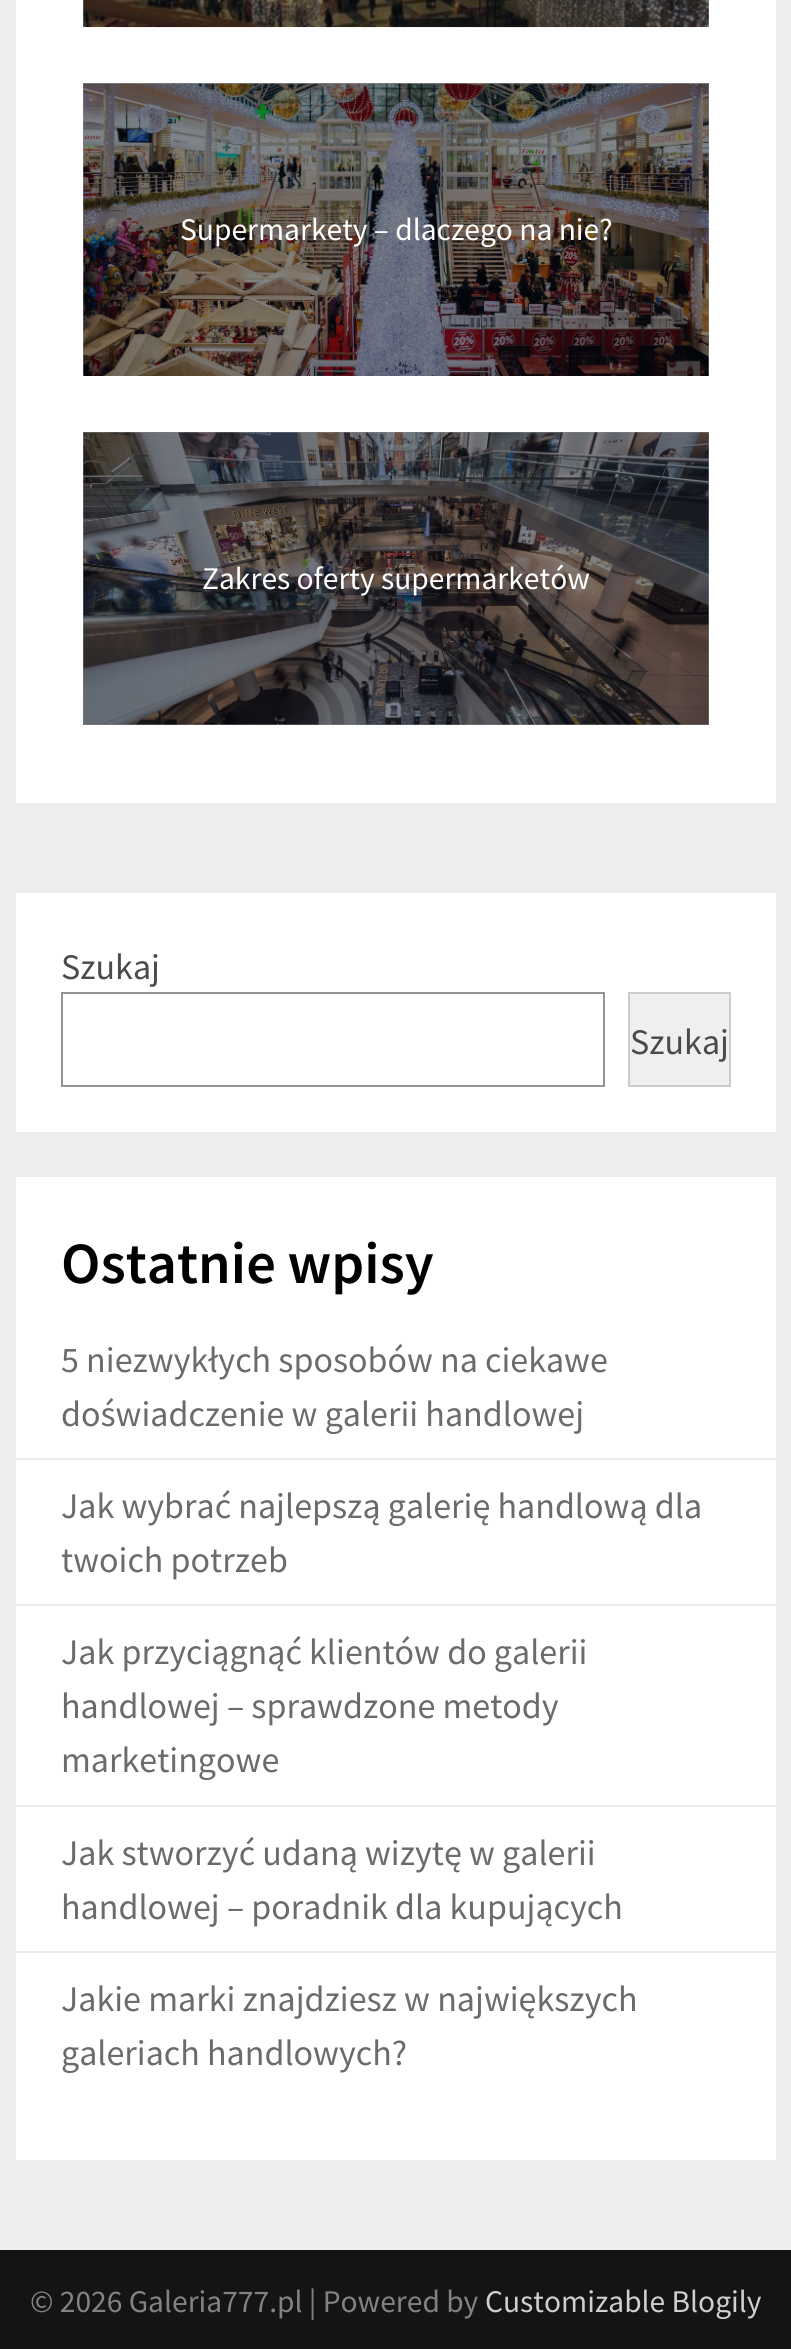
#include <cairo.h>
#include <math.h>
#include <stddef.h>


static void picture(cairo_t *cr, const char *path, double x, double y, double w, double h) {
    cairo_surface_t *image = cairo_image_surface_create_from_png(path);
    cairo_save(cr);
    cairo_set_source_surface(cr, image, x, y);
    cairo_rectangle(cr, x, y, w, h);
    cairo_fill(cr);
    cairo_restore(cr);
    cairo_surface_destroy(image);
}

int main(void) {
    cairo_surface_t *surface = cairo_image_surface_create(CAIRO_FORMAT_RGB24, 791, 2349);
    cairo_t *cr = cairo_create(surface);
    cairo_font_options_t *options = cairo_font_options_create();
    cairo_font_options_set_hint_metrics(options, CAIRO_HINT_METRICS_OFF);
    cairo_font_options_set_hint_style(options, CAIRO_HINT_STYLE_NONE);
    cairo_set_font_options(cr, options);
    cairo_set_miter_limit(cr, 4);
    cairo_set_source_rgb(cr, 0.933, 0.933, 0.933);
    cairo_paint(cr);
    cairo_set_source_rgb(cr, 1, 1, 1);
    cairo_rectangle(cr, 16, 0, 760, 803);
    cairo_fill(cr);
    cairo_set_source_rgb(cr, 0.51, 0.522, 0.541);
    cairo_rectangle(cr, 83, 432, 626, 293);
    cairo_fill(cr);
    cairo_rectangle(cr, 83, 83, 626, 293);
    cairo_fill(cr);
    cairo_rectangle(cr, 83, 0, 626, 27);
    cairo_fill(cr);
    picture(cr, "img1.png", 83, 0, 626, 28);
    picture(cr, "img2.png", 83, 83, 626, 293);
    cairo_select_font_face(cr, "Source Sans Pro", CAIRO_FONT_SLANT_NORMAL, CAIRO_FONT_WEIGHT_NORMAL);
    cairo_set_font_size(cr, 31.5);
    cairo_set_source_rgb(cr, 1, 1, 1);
    cairo_move_to(cr, 180, 240);
    cairo_show_text(cr, "Supermarkety – dlaczego na nie?");
    picture(cr, "img3.png", 83, 432, 626, 293);
    cairo_move_to(cr, 202, 589);
    cairo_show_text(cr, "Zakres oferty supermarketów");
    cairo_rectangle(cr, 16, 893, 760, 239);
    cairo_fill(cr);
    cairo_set_font_size(cr, 36);
    cairo_set_source_rgb(cr, 0.29, 0.29, 0.29);
    cairo_move_to(cr, 61, 979);
    cairo_show_text(cr, "Szukaj");
    cairo_rectangle(cr, 62, 993, 542, 93);
    cairo_set_source_rgb(cr, 0.58, 0.58, 0.58);
    cairo_stroke(cr);
    cairo_set_source_rgb(cr, 0.937, 0.937, 0.937);
    cairo_rectangle(cr, 629, 993, 101, 93);
    cairo_fill_preserve(cr);
    cairo_set_source_rgb(cr, 0.8, 0.8, 0.8);
    cairo_stroke(cr);
    cairo_set_source_rgb(cr, 0.29, 0.29, 0.29);
    cairo_move_to(cr, 630, 1054);
    cairo_show_text(cr, "Szukaj");
    cairo_set_source_rgb(cr, 1, 1, 1);
    cairo_rectangle(cr, 16, 1177, 760, 983);
    cairo_fill(cr);
    cairo_select_font_face(cr, "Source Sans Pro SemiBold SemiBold", CAIRO_FONT_SLANT_NORMAL, CAIRO_FONT_WEIGHT_NORMAL);
    cairo_set_font_size(cr, 58.5);
    cairo_set_source_rgb(cr, 0, 0, 0);
    cairo_move_to(cr, 61, 1283);
    cairo_show_text(cr, "Ostatnie wpisy");
    cairo_set_source_rgb(cr, 0.922, 0.922, 0.922);
    cairo_rectangle(cr, 16, 1458, 760, 2);
    cairo_fill(cr);
    cairo_select_font_face(cr, "Source Sans Pro", CAIRO_FONT_SLANT_NORMAL, CAIRO_FONT_WEIGHT_NORMAL);
    cairo_set_font_size(cr, 36);
    cairo_set_source_rgb(cr, 0.42, 0.42, 0.42);
    cairo_move_to(cr, 61, 1372);
    cairo_show_text(cr, "5 niezwykłych sposobów na ciekawe");
    cairo_move_to(cr, 61, 1426);
    cairo_show_text(cr, "doświadczenie w galerii handlowej");
    cairo_set_source_rgb(cr, 0.922, 0.922, 0.922);
    cairo_rectangle(cr, 16, 1604, 760, 2);
    cairo_fill(cr);
    cairo_set_source_rgb(cr, 0.42, 0.42, 0.42);
    cairo_move_to(cr, 61, 1518);
    cairo_show_text(cr, "Jak wybrać najlepszą galerię handlową dla");
    cairo_move_to(cr, 61, 1572);
    cairo_show_text(cr, "twoich potrzeb");
    cairo_set_source_rgb(cr, 0.922, 0.922, 0.922);
    cairo_rectangle(cr, 16, 1805, 760, 2);
    cairo_fill(cr);
    cairo_set_source_rgb(cr, 0.42, 0.42, 0.42);
    cairo_move_to(cr, 61, 1664);
    cairo_show_text(cr, "Jak przyciągnąć klientów do galerii");
    cairo_move_to(cr, 61, 1718);
    cairo_show_text(cr, "handlowej – sprawdzone metody");
    cairo_move_to(cr, 61, 1772);
    cairo_show_text(cr, "marketingowe");
    cairo_set_source_rgb(cr, 0.922, 0.922, 0.922);
    cairo_rectangle(cr, 16, 1951, 760, 2);
    cairo_fill(cr);
    cairo_set_source_rgb(cr, 0.42, 0.42, 0.42);
    cairo_move_to(cr, 61, 1865);
    cairo_show_text(cr, "Jak stworzyć udaną wizytę w galerii");
    cairo_move_to(cr, 61, 1919);
    cairo_show_text(cr, "handlowej – poradnik dla kupujących");
    cairo_move_to(cr, 61, 2011);
    cairo_show_text(cr, "Jakie marki znajdziesz w największych");
    cairo_move_to(cr, 61, 2065);
    cairo_show_text(cr, "galeriach handlowych?");
    cairo_set_source_rgb(cr, 0.082, 0.082, 0.082);
    cairo_rectangle(cr, 0, 2250, 791, 99);
    cairo_fill(cr);
    cairo_set_font_size(cr, 31.5);
    cairo_set_source_rgb(cr, 0.51, 0.51, 0.51);
    cairo_move_to(cr, 30, 2312);
    cairo_show_text(cr, "© 2026 Galeria777.pl | Powered by");
    cairo_set_source_rgb(cr, 0.812, 0.812, 0.812);
    cairo_move_to(cr, 485, 2312);
    cairo_show_text(cr, "Customizable Blogily");
    cairo_surface_write_to_png(surface, "page.png");
    cairo_font_options_destroy(options);
    cairo_destroy(cr);
    cairo_surface_destroy(surface);
    return 0;
}
